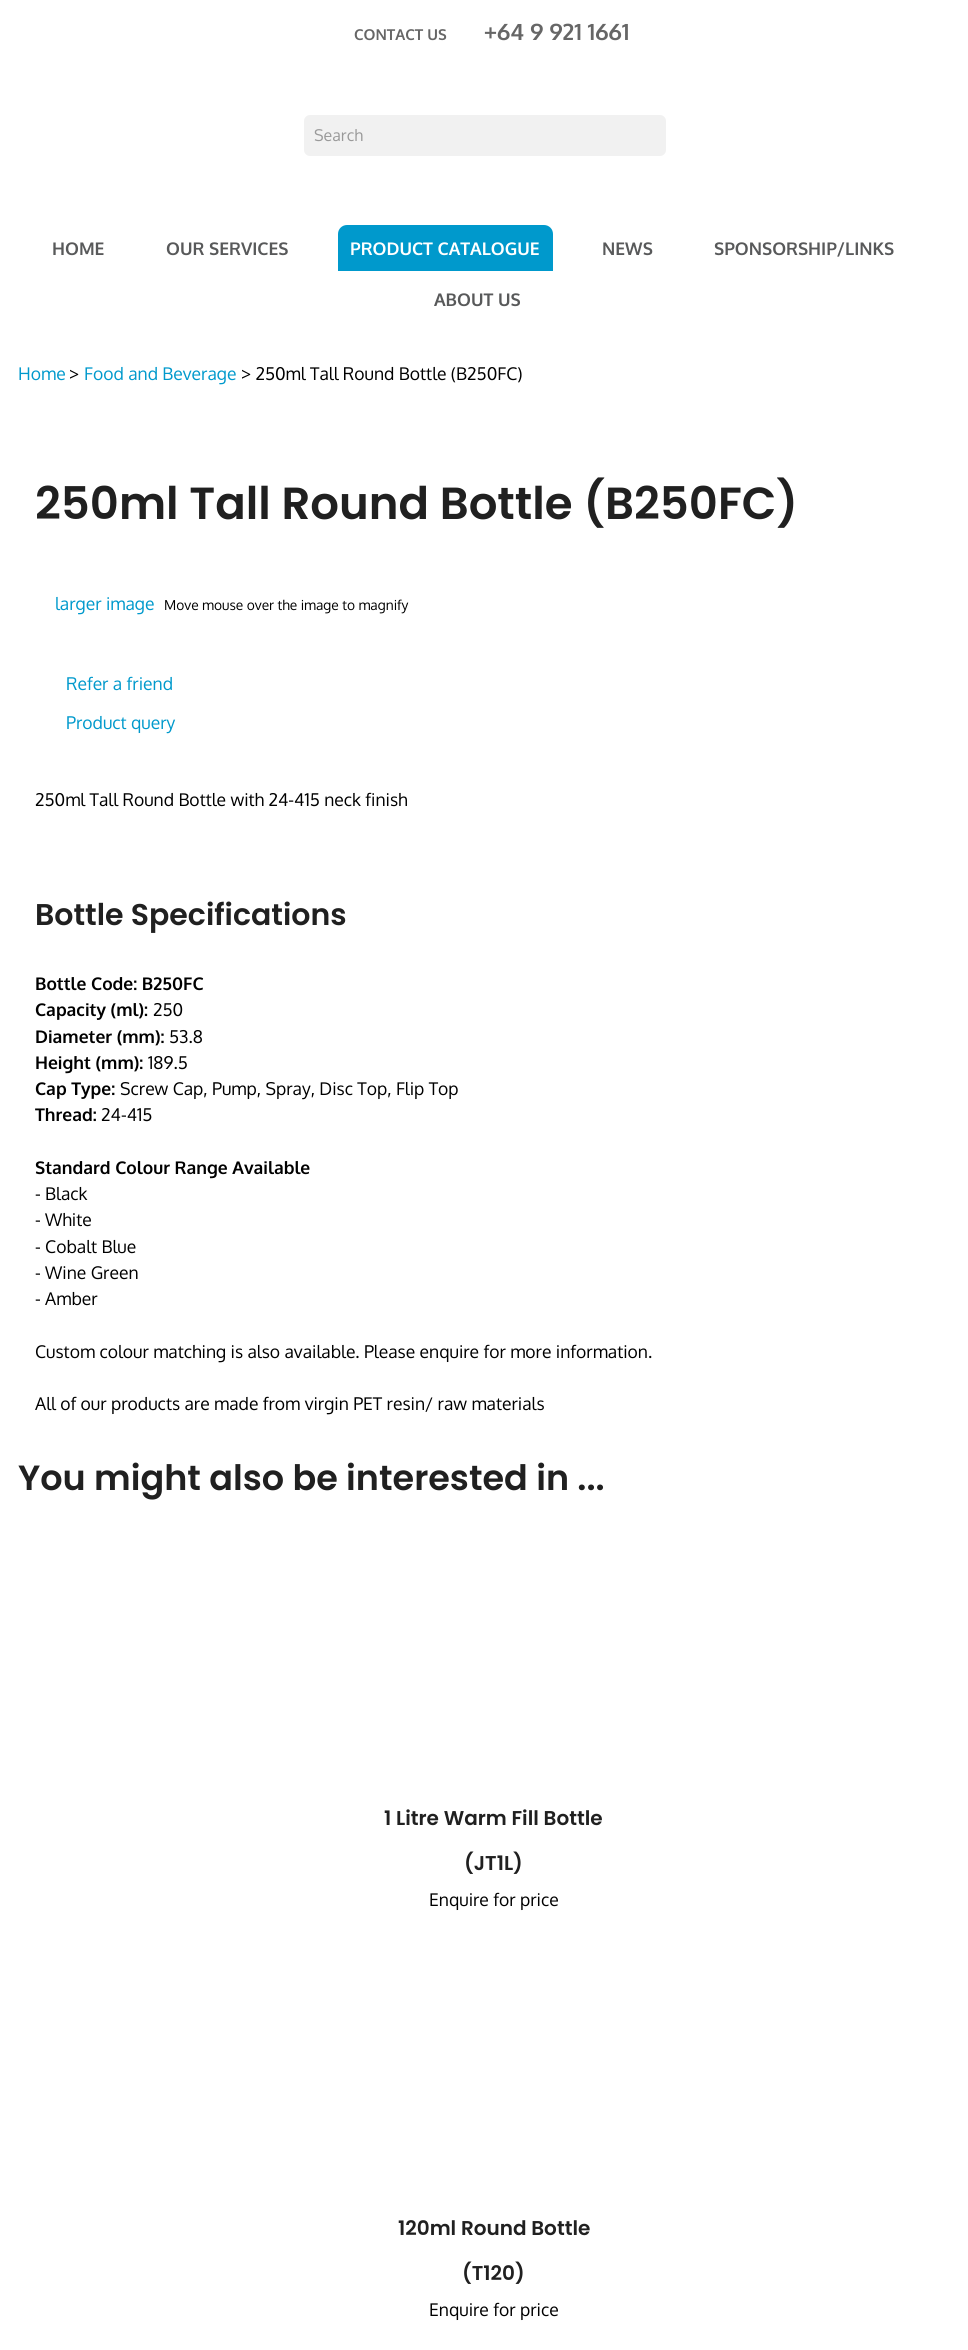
#include <cairo.h>
#include <math.h>
#include <stddef.h>


static void round_rect(cairo_t *cr, double x, double y, double w, double h, double r) {
    cairo_new_sub_path(cr);
    cairo_arc(cr, x + w - r, y + h - r, r, 0, M_PI / 2);
    cairo_arc(cr, x + r, y + h - r, r, M_PI / 2, M_PI);
    cairo_arc(cr, x + r, y + r, r, M_PI, 1.5 * M_PI);
    cairo_arc(cr, x + w - r, y + r, r, 1.5 * M_PI, 2 * M_PI);
    cairo_close_path(cr);
}

int main(void) {
    cairo_surface_t *surface = cairo_image_surface_create(CAIRO_FORMAT_RGB24, 968, 2350);
    cairo_t *cr = cairo_create(surface);
    cairo_font_options_t *options = cairo_font_options_create();
    cairo_font_options_set_hint_metrics(options, CAIRO_HINT_METRICS_OFF);
    cairo_font_options_set_hint_style(options, CAIRO_HINT_STYLE_NONE);
    cairo_set_font_options(cr, options);
    cairo_set_miter_limit(cr, 4);
    cairo_set_source_rgb(cr, 1, 1, 1);
    cairo_paint(cr);
    cairo_select_font_face(cr, "Oxygen", CAIRO_FONT_SLANT_NORMAL, CAIRO_FONT_WEIGHT_BOLD);
    cairo_set_font_size(cr, 15);
    cairo_set_source_rgb(cr, 0.4, 0.4, 0.4);
    cairo_move_to(cr, 354, 40);
    cairo_show_text(cr, "CONTACT US");
    cairo_set_font_size(cr, 22.5);
    cairo_move_to(cr, 484, 40);
    cairo_show_text(cr, "+64 9 921 1661");
    cairo_set_source_rgb(cr, 0.945, 0.945, 0.945);
    round_rect(cr, 304, 115, 362, 41, 6);
    cairo_fill(cr);
    cairo_select_font_face(cr, "Oxygen", CAIRO_FONT_SLANT_NORMAL, CAIRO_FONT_WEIGHT_NORMAL);
    cairo_set_font_size(cr, 16);
    cairo_set_source_rgb(cr, 0.6, 0.6, 0.6);
    cairo_move_to(cr, 314, 141);
    cairo_show_text(cr, "Search");
    cairo_select_font_face(cr, "Oxygen", CAIRO_FONT_SLANT_NORMAL, CAIRO_FONT_WEIGHT_BOLD);
    cairo_set_font_size(cr, 17.5);
    cairo_set_source_rgb(cr, 0.345, 0.349, 0.353);
    cairo_move_to(cr, 52, 255);
    cairo_show_text(cr, "HOME");
    cairo_move_to(cr, 166, 255);
    cairo_show_text(cr, "OUR SERVICES");
    cairo_set_source_rgb(cr, 0, 0.6, 0.8);
    cairo_new_path(cr);
    cairo_move_to(cr, 347, 225);
    cairo_line_to(cr, 544, 225);
    cairo_curve_to(cr, 549, 225, 553, 229, 553, 234);
    cairo_line_to(cr, 553, 271);
    cairo_line_to(cr, 338, 271);
    cairo_line_to(cr, 338, 234);
    cairo_curve_to(cr, 338, 229, 342, 225, 347, 225);
    cairo_close_path(cr);
    cairo_fill(cr);
    cairo_set_source_rgb(cr, 1, 1, 1);
    cairo_move_to(cr, 350, 255);
    cairo_show_text(cr, "PRODUCT CATALOGUE");
    cairo_set_source_rgb(cr, 0.345, 0.349, 0.353);
    cairo_move_to(cr, 602, 255);
    cairo_show_text(cr, "NEWS");
    cairo_move_to(cr, 714, 255);
    cairo_show_text(cr, "SPONSORSHIP/LINKS");
    cairo_move_to(cr, 434, 306);
    cairo_show_text(cr, "ABOUT US");
    cairo_select_font_face(cr, "Oxygen", CAIRO_FONT_SLANT_NORMAL, CAIRO_FONT_WEIGHT_NORMAL);
    cairo_set_source_rgb(cr, 0, 0.6, 0.8);
    cairo_move_to(cr, 18, 380);
    cairo_show_text(cr, "Home");
    cairo_set_source_rgb(cr, 0, 0, 0);
    cairo_move_to(cr, 69, 380);
    cairo_show_text(cr, ">");
    cairo_set_source_rgb(cr, 0, 0.6, 0.8);
    cairo_move_to(cr, 84, 380);
    cairo_show_text(cr, "Food and Beverage");
    cairo_set_source_rgb(cr, 0, 0, 0);
    cairo_move_to(cr, 241, 380);
    cairo_show_text(cr, "> 250ml Tall Round Bottle (B250FC)");
    cairo_select_font_face(cr, "Poppins SemiBold", CAIRO_FONT_SLANT_NORMAL, CAIRO_FONT_WEIGHT_NORMAL);
    cairo_set_font_size(cr, 45);
    cairo_set_source_rgb(cr, 0.125, 0.125, 0.125);
    cairo_move_to(cr, 35, 519);
    cairo_show_text(cr, "250ml Tall Round Bottle (B250FC)");
    cairo_select_font_face(cr, "Oxygen", CAIRO_FONT_SLANT_NORMAL, CAIRO_FONT_WEIGHT_NORMAL);
    cairo_set_font_size(cr, 17.5);
    cairo_set_source_rgb(cr, 0, 0.6, 0.8);
    cairo_move_to(cr, 55, 610);
    cairo_show_text(cr, "larger image");
    cairo_set_font_size(cr, 13.75);
    cairo_set_source_rgb(cr, 0, 0, 0);
    cairo_move_to(cr, 164, 610);
    cairo_show_text(cr, "Move mouse over the image to magnify");
    cairo_set_font_size(cr, 17.5);
    cairo_set_source_rgb(cr, 0, 0.6, 0.8);
    cairo_move_to(cr, 66, 690);
    cairo_show_text(cr, "Refer a friend");
    cairo_move_to(cr, 66, 729);
    cairo_show_text(cr, "Product query");
    cairo_set_source_rgb(cr, 0, 0, 0);
    cairo_move_to(cr, 35, 806);
    cairo_show_text(cr, "250ml Tall Round Bottle with 24-415 neck finish");
    cairo_select_font_face(cr, "Poppins SemiBold", CAIRO_FONT_SLANT_NORMAL, CAIRO_FONT_WEIGHT_NORMAL);
    cairo_set_font_size(cr, 30);
    cairo_set_source_rgb(cr, 0.125, 0.125, 0.125);
    cairo_move_to(cr, 35, 925);
    cairo_show_text(cr, "Bottle Specifications");
    cairo_select_font_face(cr, "Oxygen", CAIRO_FONT_SLANT_NORMAL, CAIRO_FONT_WEIGHT_BOLD);
    cairo_set_font_size(cr, 17.5);
    cairo_set_source_rgb(cr, 0, 0, 0);
    cairo_move_to(cr, 35, 990);
    cairo_show_text(cr, "Bottle Code: B250FC");
    cairo_move_to(cr, 35, 1016);
    cairo_show_text(cr, "Capacity (ml):");
    cairo_select_font_face(cr, "Oxygen", CAIRO_FONT_SLANT_NORMAL, CAIRO_FONT_WEIGHT_NORMAL);
    cairo_move_to(cr, 153, 1016);
    cairo_show_text(cr, "250");
    cairo_select_font_face(cr, "Oxygen", CAIRO_FONT_SLANT_NORMAL, CAIRO_FONT_WEIGHT_BOLD);
    cairo_move_to(cr, 35, 1043);
    cairo_show_text(cr, "Diameter (mm):");
    cairo_select_font_face(cr, "Oxygen", CAIRO_FONT_SLANT_NORMAL, CAIRO_FONT_WEIGHT_NORMAL);
    cairo_move_to(cr, 169, 1043);
    cairo_show_text(cr, "53.8");
    cairo_select_font_face(cr, "Oxygen", CAIRO_FONT_SLANT_NORMAL, CAIRO_FONT_WEIGHT_BOLD);
    cairo_move_to(cr, 35, 1069);
    cairo_show_text(cr, "Height (mm):");
    cairo_select_font_face(cr, "Oxygen", CAIRO_FONT_SLANT_NORMAL, CAIRO_FONT_WEIGHT_NORMAL);
    cairo_move_to(cr, 148, 1069);
    cairo_show_text(cr, "189.5");
    cairo_select_font_face(cr, "Oxygen", CAIRO_FONT_SLANT_NORMAL, CAIRO_FONT_WEIGHT_BOLD);
    cairo_move_to(cr, 35, 1095);
    cairo_show_text(cr, "Cap Type:");
    cairo_select_font_face(cr, "Oxygen", CAIRO_FONT_SLANT_NORMAL, CAIRO_FONT_WEIGHT_NORMAL);
    cairo_move_to(cr, 120, 1095);
    cairo_show_text(cr, "Screw Cap, Pump, Spray, Disc Top, Flip Top");
    cairo_select_font_face(cr, "Oxygen", CAIRO_FONT_SLANT_NORMAL, CAIRO_FONT_WEIGHT_BOLD);
    cairo_move_to(cr, 35, 1121);
    cairo_show_text(cr, "Thread:");
    cairo_select_font_face(cr, "Oxygen", CAIRO_FONT_SLANT_NORMAL, CAIRO_FONT_WEIGHT_NORMAL);
    cairo_move_to(cr, 101, 1121);
    cairo_show_text(cr, "24-415");
    cairo_select_font_face(cr, "Oxygen", CAIRO_FONT_SLANT_NORMAL, CAIRO_FONT_WEIGHT_BOLD);
    cairo_move_to(cr, 35, 1174);
    cairo_show_text(cr, "Standard Colour Range Available");
    cairo_select_font_face(cr, "Oxygen", CAIRO_FONT_SLANT_NORMAL, CAIRO_FONT_WEIGHT_NORMAL);
    cairo_move_to(cr, 35, 1200);
    cairo_show_text(cr, "- Black");
    cairo_move_to(cr, 35, 1226);
    cairo_show_text(cr, "- White");
    cairo_move_to(cr, 35, 1253);
    cairo_show_text(cr, "- Cobalt Blue");
    cairo_move_to(cr, 35, 1279);
    cairo_show_text(cr, "- Wine Green");
    cairo_move_to(cr, 35, 1305);
    cairo_show_text(cr, "- Amber");
    cairo_move_to(cr, 35, 1358);
    cairo_show_text(cr, "Custom colour matching is also available. Please enquire for more information.");
    cairo_move_to(cr, 35, 1410);
    cairo_show_text(cr, "All of our products are made from virgin PET resin/ raw materials");
    cairo_select_font_face(cr, "Poppins SemiBold", CAIRO_FONT_SLANT_NORMAL, CAIRO_FONT_WEIGHT_NORMAL);
    cairo_set_font_size(cr, 35);
    cairo_set_source_rgb(cr, 0.125, 0.125, 0.125);
    cairo_move_to(cr, 18, 1490);
    cairo_show_text(cr, "You might also be interested in ...");
    cairo_set_font_size(cr, 20);
    cairo_move_to(cr, 384, 1825);
    cairo_show_text(cr, "1 Litre Warm Fill Bottle");
    cairo_move_to(cr, 464, 1870);
    cairo_show_text(cr, "(JT1L)");
    cairo_select_font_face(cr, "Oxygen", CAIRO_FONT_SLANT_NORMAL, CAIRO_FONT_WEIGHT_NORMAL);
    cairo_set_font_size(cr, 17.5);
    cairo_set_source_rgb(cr, 0, 0, 0);
    cairo_move_to(cr, 429, 1906);
    cairo_show_text(cr, "Enquire for price");
    cairo_select_font_face(cr, "Poppins SemiBold", CAIRO_FONT_SLANT_NORMAL, CAIRO_FONT_WEIGHT_NORMAL);
    cairo_set_font_size(cr, 20);
    cairo_set_source_rgb(cr, 0.125, 0.125, 0.125);
    cairo_move_to(cr, 398, 2235);
    cairo_show_text(cr, "120ml Round Bottle");
    cairo_move_to(cr, 462, 2280);
    cairo_show_text(cr, "(T120)");
    cairo_select_font_face(cr, "Oxygen", CAIRO_FONT_SLANT_NORMAL, CAIRO_FONT_WEIGHT_NORMAL);
    cairo_set_font_size(cr, 17.5);
    cairo_set_source_rgb(cr, 0, 0, 0);
    cairo_move_to(cr, 429, 2316);
    cairo_show_text(cr, "Enquire for price");
    cairo_surface_write_to_png(surface, "page.png");
    cairo_font_options_destroy(options);
    cairo_destroy(cr);
    cairo_surface_destroy(surface);
    return 0;
}
